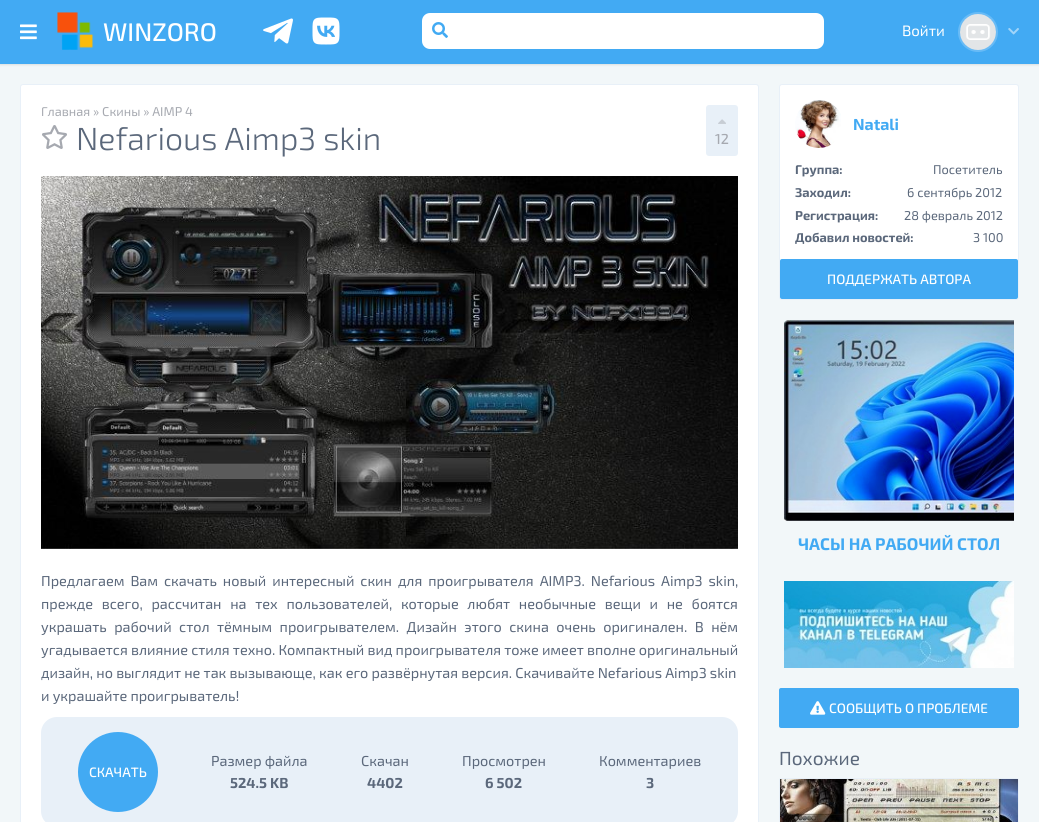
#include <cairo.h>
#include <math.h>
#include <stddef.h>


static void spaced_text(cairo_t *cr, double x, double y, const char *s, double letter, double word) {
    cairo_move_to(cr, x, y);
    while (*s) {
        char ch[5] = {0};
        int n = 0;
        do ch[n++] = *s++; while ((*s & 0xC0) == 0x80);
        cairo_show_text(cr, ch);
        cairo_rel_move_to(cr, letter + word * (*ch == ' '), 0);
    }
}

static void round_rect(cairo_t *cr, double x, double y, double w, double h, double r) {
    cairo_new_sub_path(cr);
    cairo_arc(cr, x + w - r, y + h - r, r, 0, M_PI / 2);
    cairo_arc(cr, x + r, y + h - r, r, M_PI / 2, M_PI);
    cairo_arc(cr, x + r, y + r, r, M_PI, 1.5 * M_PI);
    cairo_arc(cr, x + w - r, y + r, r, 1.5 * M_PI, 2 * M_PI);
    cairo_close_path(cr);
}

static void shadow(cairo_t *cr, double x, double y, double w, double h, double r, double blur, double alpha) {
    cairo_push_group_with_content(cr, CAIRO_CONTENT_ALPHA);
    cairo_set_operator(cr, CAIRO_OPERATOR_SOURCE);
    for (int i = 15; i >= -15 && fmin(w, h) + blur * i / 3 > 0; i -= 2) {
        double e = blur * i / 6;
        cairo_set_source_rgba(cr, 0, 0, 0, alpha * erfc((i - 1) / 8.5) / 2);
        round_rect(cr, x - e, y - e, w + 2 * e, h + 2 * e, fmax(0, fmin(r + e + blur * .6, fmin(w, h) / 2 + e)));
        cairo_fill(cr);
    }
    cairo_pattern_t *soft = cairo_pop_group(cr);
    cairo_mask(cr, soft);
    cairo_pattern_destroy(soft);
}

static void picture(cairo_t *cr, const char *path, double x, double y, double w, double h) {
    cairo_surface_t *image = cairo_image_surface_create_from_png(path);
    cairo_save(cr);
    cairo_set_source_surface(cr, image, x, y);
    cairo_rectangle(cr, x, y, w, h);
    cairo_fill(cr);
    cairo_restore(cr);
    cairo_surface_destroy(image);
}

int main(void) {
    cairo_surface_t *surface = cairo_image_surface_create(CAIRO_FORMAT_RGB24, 1039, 822);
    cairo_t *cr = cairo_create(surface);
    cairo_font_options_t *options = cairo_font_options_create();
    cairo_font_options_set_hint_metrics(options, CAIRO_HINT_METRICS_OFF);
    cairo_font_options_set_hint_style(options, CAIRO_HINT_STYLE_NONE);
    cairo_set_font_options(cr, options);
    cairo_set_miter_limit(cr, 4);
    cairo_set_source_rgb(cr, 0.949, 0.965, 0.976);
    cairo_paint(cr);
    cairo_set_source_rgb(cr, 0, 0, 0);
    shadow(cr, 0, 1, 1039, 64, 0, 1, 0.1);
    cairo_set_source_rgb(cr, 0.259, 0.667, 0.953);
    cairo_rectangle(cr, 0, 0, 1039, 64);
    cairo_fill(cr);
    picture(cr, "img1.png", 20, 24, 17, 16);
    picture(cr, "img2.png", 57, 12, 37, 38);
    cairo_select_font_face(cr, "Exo 2 Medium", CAIRO_FONT_SLANT_NORMAL, CAIRO_FONT_WEIGHT_NORMAL);
    cairo_set_font_size(cr, 25.5);
    cairo_set_source_rgb(cr, 1, 1, 1);
    cairo_move_to(cr, 103, 41);
    cairo_show_text(cr, "WINZORO");
    picture(cr, "img3.png", 263, 18, 30, 26);
    picture(cr, "img4.png", 312, 17, 28, 28);
    round_rect(cr, 422, 13, 402, 36, 8);
    cairo_fill(cr);
    picture(cr, "img5.png", 432, 22, 16, 16);
    cairo_select_font_face(cr, "Exo 2", CAIRO_FONT_SLANT_NORMAL, CAIRO_FONT_WEIGHT_NORMAL);
    cairo_set_font_size(cr, 15);
    cairo_move_to(cr, 902, 36);
    cairo_show_text(cr, "Войти");
    cairo_new_path(cr);
    cairo_arc(cr, 978, 32, 19, 0, 2 * M_PI);
    cairo_set_source_rgb(cr, 0.408, 0.733, 0.961);
    cairo_stroke(cr);
    picture(cr, "img6.png", 960, 14, 36, 36);
    picture(cr, "img7.png", 1008, 28, 11, 7);
    cairo_set_source_rgb(cr, 1, 1, 1);
    round_rect(cr, 20.5, 84.5, 738, 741, 2.5);
    cairo_fill_preserve(cr);
    cairo_set_source_rgb(cr, 0.91, 0.941, 0.969);
    cairo_set_line_width(cr, 1);
    cairo_stroke(cr);
    cairo_set_font_size(cr, 12.75);
    cairo_set_source_rgb(cr, 0.651, 0.663, 0.69);
    cairo_move_to(cr, 41, 116);
    cairo_show_text(cr, "Главная » Скины » AIMP 4");
    picture(cr, "img8.png", 42, 125, 25, 24);
    cairo_select_font_face(cr, "Exo 2 Light", CAIRO_FONT_SLANT_NORMAL, CAIRO_FONT_WEIGHT_NORMAL);
    cairo_set_font_size(cr, 32);
    cairo_set_source_rgb(cr, 0.357, 0.408, 0.482);
    cairo_move_to(cr, 76, 150);
    cairo_show_text(cr, "Nefarious Aimp3 skin");
    cairo_set_source_rgb(cr, 0.91, 0.941, 0.969);
    round_rect(cr, 706, 105, 32, 51, 3);
    cairo_fill(cr);
    picture(cr, "img9.png", 718, 119, 8, 5);
    cairo_select_font_face(cr, "Exo 2 Medium", CAIRO_FONT_SLANT_NORMAL, CAIRO_FONT_WEIGHT_NORMAL);
    cairo_set_font_size(cr, 14.4);
    cairo_set_source_rgb(cr, 0.651, 0.663, 0.69);
    cairo_move_to(cr, 715, 144);
    cairo_show_text(cr, "12");
    picture(cr, "img10.png", 41, 176, 697, 373);
    cairo_select_font_face(cr, "Exo 2", CAIRO_FONT_SLANT_NORMAL, CAIRO_FONT_WEIGHT_NORMAL);
    cairo_set_source_rgb(cr, 0.357, 0.408, 0.482);
    spaced_text(cr, 41, 586, "Предлагаем Вам скачать новый интересный скин для проигрывателя AIMP3. Nefarious Aimp3 skin,", 0, 2.75);
    spaced_text(cr, 41, 609, "прежде всего, рассчитан на тех пользователей, которые любят необычные вещи и не боятся", 0, 5.5);
    spaced_text(cr, 41, 632, "украшать рабочий стол тёмным проигрывателем. Дизайн этого скина очень оригинален. В нём", 0, 4.25);
    cairo_move_to(cr, 41, 655);
    cairo_show_text(cr, "угадывается влияние стиля техно. Компактный вид проигрывателя тоже имеет вполне оригинальный");
    cairo_move_to(cr, 41, 678);
    cairo_show_text(cr, "дизайн, но выглядит не так вызывающе, как его развёрнутая версия. Скачивайте Nefarious Aimp3 skin");
    cairo_move_to(cr, 41, 701);
    cairo_show_text(cr, "и украшайте проигрыватель!");
    cairo_set_source_rgb(cr, 0.91, 0.941, 0.969);
    round_rect(cr, 41, 717, 697, 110, 16);
    cairo_fill(cr);
    cairo_set_source_rgb(cr, 0.259, 0.667, 0.953);
    cairo_arc(cr, 118, 772, 40, 0, 2 * M_PI);
    cairo_fill(cr);
    cairo_select_font_face(cr, "Exo 2 Medium", CAIRO_FONT_SLANT_NORMAL, CAIRO_FONT_WEIGHT_NORMAL);
    cairo_set_font_size(cr, 13.6);
    cairo_set_source_rgb(cr, 1, 1, 1);
    cairo_move_to(cr, 89, 777);
    cairo_show_text(cr, "СКАЧАТЬ");
    cairo_select_font_face(cr, "Exo 2", CAIRO_FONT_SLANT_NORMAL, CAIRO_FONT_WEIGHT_NORMAL);
    cairo_set_font_size(cr, 14.4);
    cairo_set_source_rgb(cr, 0.357, 0.408, 0.482);
    cairo_move_to(cr, 211, 766);
    cairo_show_text(cr, "Размер файла");
    cairo_select_font_face(cr, "Exo 2", CAIRO_FONT_SLANT_NORMAL, CAIRO_FONT_WEIGHT_BOLD);
    cairo_move_to(cr, 230, 788);
    cairo_show_text(cr, "524.5 KB");
    cairo_select_font_face(cr, "Exo 2", CAIRO_FONT_SLANT_NORMAL, CAIRO_FONT_WEIGHT_NORMAL);
    cairo_move_to(cr, 361, 766);
    cairo_show_text(cr, "Скачан");
    cairo_select_font_face(cr, "Exo 2", CAIRO_FONT_SLANT_NORMAL, CAIRO_FONT_WEIGHT_BOLD);
    cairo_move_to(cr, 367, 788);
    cairo_show_text(cr, "4402");
    cairo_select_font_face(cr, "Exo 2", CAIRO_FONT_SLANT_NORMAL, CAIRO_FONT_WEIGHT_NORMAL);
    cairo_move_to(cr, 462, 766);
    cairo_show_text(cr, "Просмотрен");
    cairo_select_font_face(cr, "Exo 2", CAIRO_FONT_SLANT_NORMAL, CAIRO_FONT_WEIGHT_BOLD);
    cairo_move_to(cr, 485, 788);
    cairo_show_text(cr, "6 502");
    cairo_select_font_face(cr, "Exo 2", CAIRO_FONT_SLANT_NORMAL, CAIRO_FONT_WEIGHT_NORMAL);
    cairo_move_to(cr, 599, 766);
    cairo_show_text(cr, "Комментариев");
    cairo_select_font_face(cr, "Exo 2", CAIRO_FONT_SLANT_NORMAL, CAIRO_FONT_WEIGHT_BOLD);
    cairo_move_to(cr, 646, 788);
    cairo_show_text(cr, "3");
    cairo_set_source_rgb(cr, 1, 1, 1);
    round_rect(cr, 779.5, 84.5, 239, 215, 2.5);
    cairo_fill_preserve(cr);
    cairo_set_source_rgb(cr, 0.91, 0.941, 0.969);
    cairo_stroke(cr);
    picture(cr, "img11.png", 795, 100, 46, 48);
    cairo_set_font_size(cr, 16);
    cairo_set_source_rgb(cr, 0.259, 0.667, 0.953);
    cairo_move_to(cr, 853, 130);
    cairo_show_text(cr, "Natali");
    cairo_set_font_size(cr, 12.75);
    cairo_set_source_rgb(cr, 0.357, 0.408, 0.482);
    cairo_move_to(cr, 795, 174);
    cairo_show_text(cr, "Группа:");
    cairo_select_font_face(cr, "Exo 2", CAIRO_FONT_SLANT_NORMAL, CAIRO_FONT_WEIGHT_NORMAL);
    cairo_move_to(cr, 933, 174);
    cairo_show_text(cr, "Посетитель");
    cairo_select_font_face(cr, "Exo 2", CAIRO_FONT_SLANT_NORMAL, CAIRO_FONT_WEIGHT_BOLD);
    cairo_move_to(cr, 795, 197);
    cairo_show_text(cr, "Заходил:");
    cairo_select_font_face(cr, "Exo 2", CAIRO_FONT_SLANT_NORMAL, CAIRO_FONT_WEIGHT_NORMAL);
    cairo_move_to(cr, 907, 197);
    cairo_show_text(cr, "6 сентябрь 2012");
    cairo_select_font_face(cr, "Exo 2", CAIRO_FONT_SLANT_NORMAL, CAIRO_FONT_WEIGHT_BOLD);
    cairo_move_to(cr, 795, 220);
    cairo_show_text(cr, "Регистрация:");
    cairo_select_font_face(cr, "Exo 2", CAIRO_FONT_SLANT_NORMAL, CAIRO_FONT_WEIGHT_NORMAL);
    cairo_move_to(cr, 904, 220);
    cairo_show_text(cr, "28 февраль 2012");
    cairo_select_font_face(cr, "Exo 2", CAIRO_FONT_SLANT_NORMAL, CAIRO_FONT_WEIGHT_BOLD);
    cairo_move_to(cr, 795, 242);
    cairo_show_text(cr, "Добавил новостей:");
    cairo_select_font_face(cr, "Exo 2", CAIRO_FONT_SLANT_NORMAL, CAIRO_FONT_WEIGHT_NORMAL);
    cairo_move_to(cr, 973, 242);
    cairo_show_text(cr, "3 100");
    cairo_set_source_rgb(cr, 0.259, 0.667, 0.953);
    round_rect(cr, 780, 259, 238, 40, 2);
    cairo_fill(cr);
    cairo_select_font_face(cr, "Exo 2 Medium", CAIRO_FONT_SLANT_NORMAL, CAIRO_FONT_WEIGHT_NORMAL);
    cairo_set_font_size(cr, 13.6);
    cairo_set_source_rgb(cr, 1, 1, 1);
    cairo_move_to(cr, 827, 284);
    cairo_show_text(cr, "ПОДДЕРЖАТЬ АВТОРА");
    picture(cr, "img12.png", 784, 320, 230, 201);
    cairo_select_font_face(cr, "Exo 2", CAIRO_FONT_SLANT_NORMAL, CAIRO_FONT_WEIGHT_BOLD);
    cairo_set_font_size(cr, 16.8);
    cairo_set_source_rgb(cr, 0.259, 0.667, 0.953);
    cairo_move_to(cr, 798, 550);
    cairo_show_text(cr, "ЧАСЫ НА РАБОЧИЙ СТОЛ");
    picture(cr, "img13.png", 784, 581, 230, 87);
    round_rect(cr, 779, 688, 240, 40, 2);
    cairo_fill(cr);
    picture(cr, "img14.png", 810, 701, 16, 14);
    cairo_select_font_face(cr, "Exo 2 Medium", CAIRO_FONT_SLANT_NORMAL, CAIRO_FONT_WEIGHT_NORMAL);
    cairo_set_font_size(cr, 13.6);
    cairo_set_source_rgb(cr, 1, 1, 1);
    cairo_move_to(cr, 829, 713);
    cairo_show_text(cr, "СООБЩИТЬ О ПРОБЛЕМЕ");
    cairo_select_font_face(cr, "Exo 2", CAIRO_FONT_SLANT_NORMAL, CAIRO_FONT_WEIGHT_NORMAL);
    cairo_set_font_size(cr, 19);
    cairo_set_source_rgb(cr, 0.357, 0.408, 0.482);
    cairo_move_to(cr, 779, 765);
    cairo_show_text(cr, "Похожие");
    cairo_set_source_rgb(cr, 0.91, 0.941, 0.969);
    cairo_set_fill_rule(cr, CAIRO_FILL_RULE_EVEN_ODD);
    cairo_new_path(cr);
    cairo_move_to(cr, 781, 778);
    cairo_curve_to(cr, 780, 778, 779, 779, 779, 780);
    cairo_line_to(cr, 779, 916);
    cairo_curve_to(cr, 779, 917, 780, 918, 781, 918);
    cairo_line_to(cr, 1017, 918);
    cairo_curve_to(cr, 1018, 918, 1019, 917, 1019, 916);
    cairo_line_to(cr, 1019, 780);
    cairo_curve_to(cr, 1019, 779, 1018, 778, 1017, 778);
    cairo_close_path(cr);
    cairo_move_to(cr, 780, 779);
    cairo_line_to(cr, 780, 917);
    cairo_line_to(cr, 1018, 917);
    cairo_line_to(cr, 1018, 779);
    cairo_close_path(cr);
    cairo_fill(cr);
    picture(cr, "img15.png", 780, 779, 238, 43);
    cairo_surface_write_to_png(surface, "page.png");
    cairo_font_options_destroy(options);
    cairo_destroy(cr);
    cairo_surface_destroy(surface);
    return 0;
}
